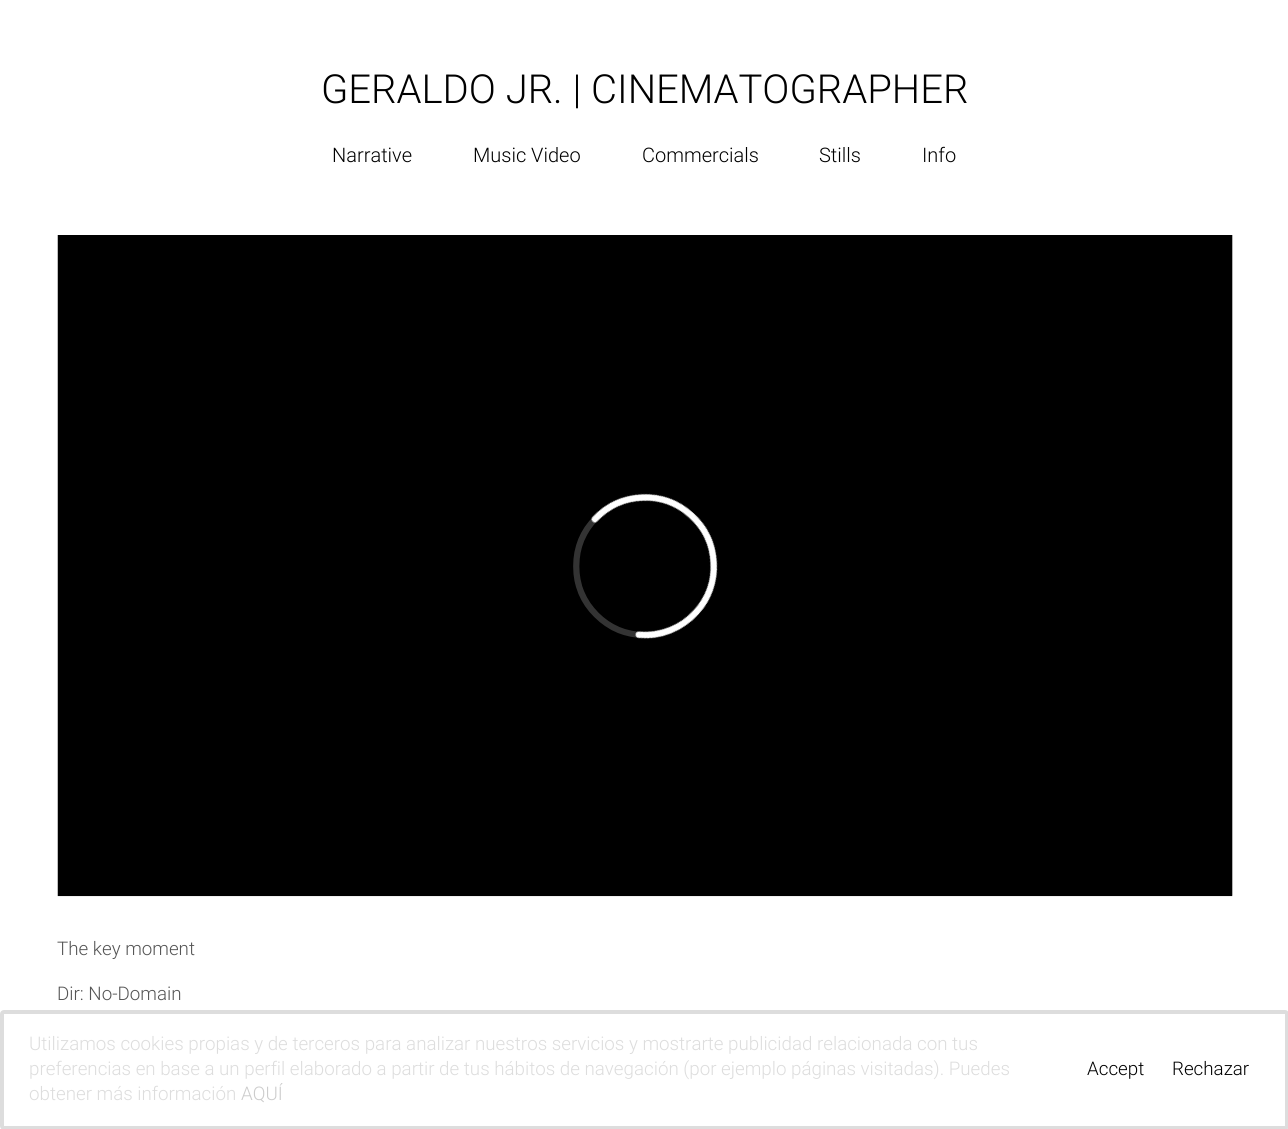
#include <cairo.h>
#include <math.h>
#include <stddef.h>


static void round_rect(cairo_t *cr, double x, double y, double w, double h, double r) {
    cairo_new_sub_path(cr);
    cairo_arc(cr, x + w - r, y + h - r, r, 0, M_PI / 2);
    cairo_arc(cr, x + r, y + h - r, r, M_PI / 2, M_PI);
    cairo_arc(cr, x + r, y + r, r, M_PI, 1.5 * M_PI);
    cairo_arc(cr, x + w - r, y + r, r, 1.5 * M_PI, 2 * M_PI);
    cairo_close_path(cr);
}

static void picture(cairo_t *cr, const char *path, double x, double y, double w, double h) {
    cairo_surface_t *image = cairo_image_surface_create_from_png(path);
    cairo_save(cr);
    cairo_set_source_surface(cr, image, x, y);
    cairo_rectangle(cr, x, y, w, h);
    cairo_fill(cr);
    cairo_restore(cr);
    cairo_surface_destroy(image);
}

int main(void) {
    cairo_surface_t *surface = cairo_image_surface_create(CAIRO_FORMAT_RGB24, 1288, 1129);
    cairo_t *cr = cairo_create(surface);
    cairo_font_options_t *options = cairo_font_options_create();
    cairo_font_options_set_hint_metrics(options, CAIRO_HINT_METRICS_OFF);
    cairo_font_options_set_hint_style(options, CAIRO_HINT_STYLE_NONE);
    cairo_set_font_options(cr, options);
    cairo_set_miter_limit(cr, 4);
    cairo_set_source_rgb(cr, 1, 1, 1);
    cairo_paint(cr);
    cairo_select_font_face(cr, "Roboto Light", CAIRO_FONT_SLANT_NORMAL, CAIRO_FONT_WEIGHT_NORMAL);
    cairo_set_font_size(cr, 40);
    cairo_set_source_rgb(cr, 0, 0, 0);
    cairo_move_to(cr, 321, 103);
    cairo_show_text(cr, "GERALDO JR. | CINEMATOGRAPHER");
    cairo_set_font_size(cr, 20);
    cairo_move_to(cr, 332, 162);
    cairo_show_text(cr, "Narrative");
    cairo_move_to(cr, 473, 162);
    cairo_show_text(cr, "Music Video");
    cairo_move_to(cr, 642, 162);
    cairo_show_text(cr, "Commercials");
    cairo_move_to(cr, 819, 162);
    cairo_show_text(cr, "Stills");
    cairo_move_to(cr, 922, 162);
    cairo_show_text(cr, "Info");
    cairo_set_source_rgb(cr, 0.933, 0.933, 0.933);
    cairo_rectangle(cr, 1232, 235, 1, 660);
    cairo_fill(cr);
    picture(cr, "img1.png", 57, 235, 1176, 662);
    cairo_set_font_size(cr, 18.75);
    cairo_set_source_rgb(cr, 0.333, 0.333, 0.333);
    cairo_move_to(cr, 57, 955);
    cairo_show_text(cr, "The key moment");
    cairo_move_to(cr, 57, 1000);
    cairo_show_text(cr, "Dir: No-Domain");
    round_rect(cr, 2, 1012, 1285, 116, 2);
    cairo_set_source_rgb(cr, 0.867, 0.867, 0.867);
    cairo_set_line_width(cr, 4);
    cairo_stroke(cr);
    cairo_move_to(cr, 29, 1050);
    cairo_show_text(cr, "Utilizamos cookies propias y de terceros para analizar nuestros servicios y mostrarte publicidad relacionada con tus");
    cairo_move_to(cr, 29, 1075);
    cairo_show_text(cr, "preferencias en base a un perfil elaborado a partir de tus hábitos de navegación (por ejemplo páginas visitadas). Puedes");
    cairo_move_to(cr, 29, 1100);
    cairo_show_text(cr, "obtener más información");
    cairo_set_source_rgb(cr, 0.8, 0.8, 0.8);
    cairo_move_to(cr, 241, 1100);
    cairo_show_text(cr, "AQUÍ");
    cairo_set_source_rgb(cr, 0, 0, 0);
    cairo_move_to(cr, 1087, 1075);
    cairo_show_text(cr, "Accept");
    cairo_move_to(cr, 1172, 1075);
    cairo_show_text(cr, "Rechazar");
    cairo_surface_write_to_png(surface, "page.png");
    cairo_font_options_destroy(options);
    cairo_destroy(cr);
    cairo_surface_destroy(surface);
    return 0;
}
